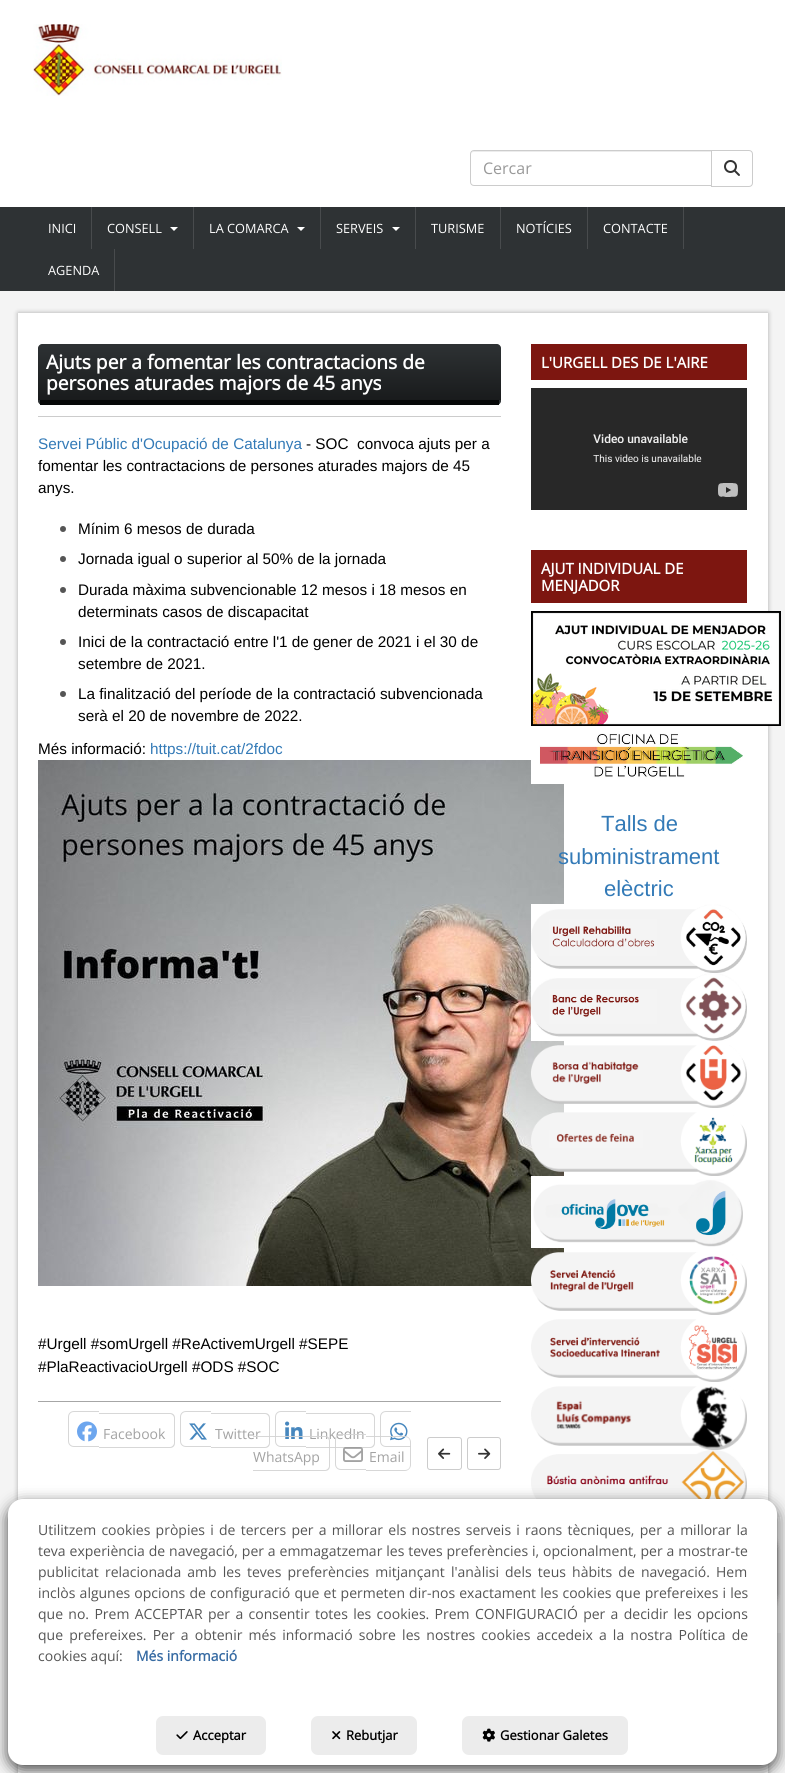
#include <cairo.h>
#include <math.h>
#include <stddef.h>


static void spaced_text(cairo_t *cr, double x, double y, const char *s, double letter, double word) {
    cairo_move_to(cr, x, y);
    while (*s) {
        char ch[5] = {0};
        int n = 0;
        do ch[n++] = *s++; while ((*s & 0xC0) == 0x80);
        cairo_show_text(cr, ch);
        cairo_rel_move_to(cr, letter + word * (*ch == ' '), 0);
    }
}

static void round_rect(cairo_t *cr, double x, double y, double w, double h, double r) {
    cairo_new_sub_path(cr);
    cairo_arc(cr, x + w - r, y + h - r, r, 0, M_PI / 2);
    cairo_arc(cr, x + r, y + h - r, r, M_PI / 2, M_PI);
    cairo_arc(cr, x + r, y + r, r, M_PI, 1.5 * M_PI);
    cairo_arc(cr, x + w - r, y + r, r, 1.5 * M_PI, 2 * M_PI);
    cairo_close_path(cr);
}

static void shadow(cairo_t *cr, double x, double y, double w, double h, double r, double blur, double alpha) {
    cairo_push_group_with_content(cr, CAIRO_CONTENT_ALPHA);
    cairo_set_operator(cr, CAIRO_OPERATOR_SOURCE);
    for (int i = 15; i >= -15 && fmin(w, h) + blur * i / 3 > 0; i -= 2) {
        double e = blur * i / 6;
        cairo_set_source_rgba(cr, 0, 0, 0, alpha * erfc((i - 1) / 8.5) / 2);
        round_rect(cr, x - e, y - e, w + 2 * e, h + 2 * e, fmax(0, fmin(r + e + blur * .6, fmin(w, h) / 2 + e)));
        cairo_fill(cr);
    }
    cairo_pattern_t *soft = cairo_pop_group(cr);
    cairo_mask(cr, soft);
    cairo_pattern_destroy(soft);
}

static void picture(cairo_t *cr, const char *path, double x, double y, double w, double h) {
    cairo_surface_t *image = cairo_image_surface_create_from_png(path);
    cairo_save(cr);
    cairo_set_source_surface(cr, image, x, y);
    cairo_rectangle(cr, x, y, w, h);
    cairo_fill(cr);
    cairo_restore(cr);
    cairo_surface_destroy(image);
}

int main(void) {
    cairo_surface_t *surface = cairo_image_surface_create(CAIRO_FORMAT_RGB24, 785, 1773);
    cairo_t *cr = cairo_create(surface);
    cairo_font_options_t *options = cairo_font_options_create();
    cairo_font_options_set_hint_metrics(options, CAIRO_HINT_METRICS_OFF);
    cairo_font_options_set_hint_style(options, CAIRO_HINT_STYLE_NONE);
    cairo_set_font_options(cr, options);
    cairo_set_miter_limit(cr, 4);
    cairo_pattern_t *gradient;
    cairo_set_source_rgb(cr, 0.957, 0.957, 0.957);
    cairo_paint(cr);
    cairo_set_source_rgb(cr, 1, 1, 1);
    cairo_rectangle(cr, 0, 0, 785, 207);
    cairo_fill(cr);
    picture(cr, "img1.png", 33, 24, 249, 72);
    cairo_new_path(cr);
    cairo_move_to(cr, 711.5, 150.5);
    cairo_line_to(cr, 749, 150.5);
    cairo_curve_to(cr, 751, 150.5, 752.5, 152, 752.5, 154);
    cairo_line_to(cr, 752.5, 183);
    cairo_curve_to(cr, 752.5, 185, 751, 186.5, 749, 186.5);
    cairo_line_to(cr, 711.5, 186.5);
    cairo_close_path(cr);
    cairo_set_source_rgb(cr, 0.8, 0.8, 0.8);
    cairo_set_line_width(cr, 1);
    cairo_stroke(cr);
    cairo_set_source_rgb(cr, 1, 1, 1);
    cairo_new_path(cr);
    cairo_move_to(cr, 474, 150);
    cairo_line_to(cr, 712, 150);
    cairo_line_to(cr, 712, 186);
    cairo_line_to(cr, 474, 186);
    cairo_curve_to(cr, 472, 186, 470, 184, 470, 182);
    cairo_line_to(cr, 470, 154);
    cairo_curve_to(cr, 470, 152, 472, 150, 474, 150);
    cairo_close_path(cr);
    cairo_fill(cr);
    cairo_set_source_rgb(cr, 0.925, 0.925, 0.925);
    cairo_new_path(cr);
    cairo_move_to(cr, 474, 152);
    cairo_line_to(cr, 711, 152);
    cairo_line_to(cr, 711, 151);
    cairo_line_to(cr, 474, 151);
    cairo_curve_to(cr, 472, 151, 471, 153, 471, 155);
    cairo_curve_to(cr, 471, 153, 472, 152, 474, 152);
    cairo_close_path(cr);
    cairo_fill(cr);
    cairo_new_path(cr);
    cairo_move_to(cr, 474, 150.5);
    cairo_line_to(cr, 711.5, 150.5);
    cairo_line_to(cr, 711.5, 185.5);
    cairo_line_to(cr, 474, 185.5);
    cairo_curve_to(cr, 472, 185.5, 470.5, 184, 470.5, 182);
    cairo_line_to(cr, 470.5, 154);
    cairo_curve_to(cr, 470.5, 152, 472, 150.5, 474, 150.5);
    cairo_close_path(cr);
    cairo_set_source_rgb(cr, 0.8, 0.8, 0.8);
    cairo_stroke(cr);
    cairo_select_font_face(cr, "Open Sans", CAIRO_FONT_SLANT_NORMAL, CAIRO_FONT_WEIGHT_NORMAL);
    cairo_set_font_size(cr, 16);
    cairo_set_source_rgb(cr, 0.6, 0.6, 0.6);
    cairo_move_to(cr, 483, 174);
    cairo_show_text(cr, "Cercar");
    picture(cr, "img2.png", 724, 160, 16, 16);
    cairo_set_source_rgb(cr, 0.18, 0.196, 0.204);
    cairo_rectangle(cr, 0, 207, 785, 84);
    cairo_fill(cr);
    cairo_set_source_rgb(cr, 0.282, 0.294, 0.302);
    cairo_rectangle(cr, 91, 207, 1, 42);
    cairo_fill(cr);
    cairo_set_font_size(cr, 12.75);
    cairo_set_source_rgb(cr, 1, 1, 1);
    cairo_move_to(cr, 48, 233);
    cairo_show_text(cr, "INICI");
    cairo_set_source_rgb(cr, 0.282, 0.294, 0.302);
    cairo_rectangle(cr, 193, 207, 1, 42);
    cairo_fill(cr);
    cairo_set_source_rgb(cr, 1, 1, 1);
    cairo_move_to(cr, 107, 233);
    cairo_show_text(cr, "CONSELL");
    cairo_new_path(cr);
    cairo_move_to(cr, 170, 227);
    cairo_line_to(cr, 178, 227);
    cairo_line_to(cr, 174, 231);
    cairo_close_path(cr);
    cairo_fill(cr);
    cairo_set_source_rgb(cr, 0.282, 0.294, 0.302);
    cairo_rectangle(cr, 320, 207, 1, 42);
    cairo_fill(cr);
    cairo_set_source_rgb(cr, 1, 1, 1);
    cairo_move_to(cr, 209, 233);
    cairo_show_text(cr, "LA COMARCA");
    cairo_new_path(cr);
    cairo_move_to(cr, 297, 227);
    cairo_line_to(cr, 305, 227);
    cairo_line_to(cr, 301, 231);
    cairo_close_path(cr);
    cairo_fill(cr);
    cairo_set_source_rgb(cr, 0.282, 0.294, 0.302);
    cairo_rectangle(cr, 415, 207, 1, 42);
    cairo_fill(cr);
    cairo_set_source_rgb(cr, 1, 1, 1);
    cairo_move_to(cr, 336, 233);
    cairo_show_text(cr, "SERVEIS");
    cairo_new_path(cr);
    cairo_move_to(cr, 392, 227);
    cairo_line_to(cr, 400, 227);
    cairo_line_to(cr, 396, 231);
    cairo_close_path(cr);
    cairo_fill(cr);
    cairo_set_source_rgb(cr, 0.282, 0.294, 0.302);
    cairo_rectangle(cr, 500, 207, 1, 42);
    cairo_fill(cr);
    cairo_set_source_rgb(cr, 1, 1, 1);
    cairo_move_to(cr, 431, 233);
    cairo_show_text(cr, "TURISME");
    cairo_set_source_rgb(cr, 0.282, 0.294, 0.302);
    cairo_rectangle(cr, 587, 207, 1, 42);
    cairo_fill(cr);
    cairo_set_source_rgb(cr, 1, 1, 1);
    cairo_move_to(cr, 516, 233);
    cairo_show_text(cr, "NOTÍCIES");
    cairo_set_source_rgb(cr, 0.282, 0.294, 0.302);
    cairo_rectangle(cr, 683, 207, 1, 42);
    cairo_fill(cr);
    cairo_set_source_rgb(cr, 1, 1, 1);
    cairo_move_to(cr, 603, 233);
    cairo_show_text(cr, "CONTACTE");
    cairo_set_source_rgb(cr, 0.282, 0.294, 0.302);
    cairo_rectangle(cr, 114, 249, 1, 42);
    cairo_fill(cr);
    cairo_set_source_rgb(cr, 1, 1, 1);
    cairo_move_to(cr, 48, 275);
    cairo_show_text(cr, "AGENDA");
    cairo_set_source_rgb(cr, 0, 0, 0);
    shadow(cr, 18, 313, 750, 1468, 0, 2.5, 0.3);
    cairo_set_source_rgb(cr, 1, 1, 1);
    cairo_rectangle(cr, 18, 313, 750, 1460);
    cairo_fill(cr);
    gradient = cairo_pattern_create_linear(270, 344, 270, 400);
    cairo_pattern_add_color_stop_rgba(gradient, 0, 0.18, 0.196, 0.204, 1);
    cairo_pattern_add_color_stop_rgba(gradient, 1, 0.098, 0.106, 0.11, 1);
    cairo_set_source(cr, gradient);
    cairo_pattern_destroy(gradient);
    cairo_new_path(cr);
    cairo_move_to(cr, 42, 344);
    cairo_line_to(cr, 497, 344);
    cairo_curve_to(cr, 499, 344, 501, 346, 501, 348);
    cairo_line_to(cr, 501, 400);
    cairo_line_to(cr, 38, 400);
    cairo_line_to(cr, 38, 348);
    cairo_curve_to(cr, 38, 346, 40, 344, 42, 344);
    cairo_close_path(cr);
    cairo_fill(cr);
    gradient = cairo_pattern_create_linear(270, 400, 270, 456);
    cairo_pattern_add_color_stop_rgba(gradient, 0, 0.18, 0.196, 0.204, 1);
    cairo_pattern_add_color_stop_rgba(gradient, 1, 0.098, 0.106, 0.11, 1);
    cairo_set_source(cr, gradient);
    cairo_pattern_destroy(gradient);
    cairo_new_path(cr);
    cairo_move_to(cr, 38, 400);
    cairo_line_to(cr, 501, 400);
    cairo_line_to(cr, 501, 401);
    cairo_curve_to(cr, 501, 403, 499, 405, 497, 405);
    cairo_line_to(cr, 42, 405);
    cairo_curve_to(cr, 40, 405, 38, 403, 38, 401);
    cairo_close_path(cr);
    cairo_fill(cr);
    cairo_set_source_rgb(cr, 0.027, 0.031, 0.031);
    cairo_rectangle(cr, 40, 400, 459, 5);
    cairo_fill(cr);
    cairo_select_font_face(cr, "Open Sans", CAIRO_FONT_SLANT_NORMAL, CAIRO_FONT_WEIGHT_BOLD);
    cairo_set_font_size(cr, 19.25);
    cairo_set_source_rgb(cr, 1, 1, 1);
    cairo_move_to(cr, 46, 369);
    cairo_show_text(cr, "Ajuts per a fomentar les contractacions de");
    cairo_move_to(cr, 46, 390);
    cairo_show_text(cr, "persones aturades majors de 45 anys");
    cairo_set_source_rgb(cr, 0.8, 0.8, 0.8);
    cairo_rectangle(cr, 38, 416, 463, 1);
    cairo_fill(cr);
    cairo_set_source_rgb(cr, 0.651, 0.651, 0.651);
    cairo_rectangle(cr, 38, 1401, 463, 1);
    cairo_fill(cr);
    cairo_select_font_face(cr, "Liberation Sans", CAIRO_FONT_SLANT_NORMAL, CAIRO_FONT_WEIGHT_NORMAL);
    cairo_set_font_size(cr, 15.3);
    cairo_set_source_rgb(cr, 0.2, 0.478, 0.718);
    cairo_move_to(cr, 38, 449);
    cairo_show_text(cr, "Servei Públic d'Ocupació de Catalunya");
    cairo_set_source_rgb(cr, 0, 0, 0);
    cairo_move_to(cr, 306, 449);
    cairo_show_text(cr, "- SOC");
    cairo_move_to(cr, 357, 449);
    cairo_show_text(cr, "convoca ajuts per a");
    cairo_move_to(cr, 38, 471);
    cairo_show_text(cr, "fomentar les contractacions de persones aturades majors de 45");
    cairo_move_to(cr, 38, 493);
    cairo_show_text(cr, "anys.");
    cairo_set_source_rgb(cr, 0.333, 0.333, 0.333);
    cairo_new_path(cr);
    cairo_arc(cr, 63, 529, 3, 0, 2 * M_PI);
    cairo_fill(cr);
    cairo_set_source_rgb(cr, 0, 0, 0);
    cairo_move_to(cr, 78, 534);
    cairo_show_text(cr, "Mínim 6 mesos de durada");
    cairo_set_source_rgb(cr, 0.333, 0.333, 0.333);
    cairo_new_path(cr);
    cairo_arc(cr, 63, 559, 3, 0, 2 * M_PI);
    cairo_fill(cr);
    cairo_set_source_rgb(cr, 0, 0, 0);
    cairo_move_to(cr, 78, 564);
    cairo_show_text(cr, "Jornada igual o superior al 50% de la jornada");
    cairo_set_source_rgb(cr, 0.333, 0.333, 0.333);
    cairo_new_path(cr);
    cairo_arc(cr, 63, 590, 3, 0, 2 * M_PI);
    cairo_fill(cr);
    cairo_set_source_rgb(cr, 0, 0, 0);
    cairo_move_to(cr, 78, 595);
    cairo_show_text(cr, "Durada màxima subvencionable 12 mesos i 18 mesos en");
    cairo_move_to(cr, 78, 617);
    cairo_show_text(cr, "determinats casos de discapacitat");
    cairo_set_source_rgb(cr, 0.333, 0.333, 0.333);
    cairo_new_path(cr);
    cairo_arc(cr, 63, 642, 3, 0, 2 * M_PI);
    cairo_fill(cr);
    cairo_set_source_rgb(cr, 0, 0, 0);
    cairo_move_to(cr, 78, 647);
    cairo_show_text(cr, "Inici de la contractació entre l'1 de gener de 2021 i el 30 de");
    cairo_move_to(cr, 78, 669);
    cairo_show_text(cr, "setembre de 2021.");
    cairo_set_source_rgb(cr, 0.333, 0.333, 0.333);
    cairo_new_path(cr);
    cairo_arc(cr, 63, 694, 3, 0, 2 * M_PI);
    cairo_fill(cr);
    cairo_set_source_rgb(cr, 0, 0, 0);
    cairo_move_to(cr, 78, 699);
    cairo_show_text(cr, "La finalització del període de la contractació subvencionada");
    cairo_move_to(cr, 78, 721);
    cairo_show_text(cr, "serà el 20 de novembre de 2022.");
    cairo_move_to(cr, 38, 754);
    cairo_show_text(cr, "Més informació:");
    cairo_set_source_rgb(cr, 0.2, 0.478, 0.718);
    cairo_move_to(cr, 150, 754);
    cairo_show_text(cr, "https://tuit.cat/2fdoc");
    picture(cr, "img3.png", 38, 760, 526, 526);
    cairo_set_source_rgb(cr, 0, 0, 0);
    cairo_move_to(cr, 38, 1349);
    cairo_show_text(cr, "#Urgell #somUrgell #ReActivemUrgell #SEPE");
    cairo_move_to(cr, 38, 1372);
    cairo_show_text(cr, "#PlaReactivacioUrgell #ODS #SOC");
    cairo_set_source_rgb(cr, 0.843, 0.843, 0.843);
    cairo_set_fill_rule(cr, CAIRO_FILL_RULE_EVEN_ODD);
    cairo_new_path(cr);
    cairo_move_to(cr, 74, 1411);
    cairo_line_to(cr, 99, 1411);
    cairo_line_to(cr, 99, 1447);
    cairo_line_to(cr, 74, 1447);
    cairo_curve_to(cr, 70.5, 1447, 68, 1444.5, 68, 1441);
    cairo_line_to(cr, 68, 1417);
    cairo_curve_to(cr, 68, 1413.5, 70.5, 1411, 74, 1411);
    cairo_close_path(cr);
    cairo_move_to(cr, 74, 1412);
    cairo_line_to(cr, 99, 1412);
    cairo_line_to(cr, 99, 1446);
    cairo_line_to(cr, 74, 1446);
    cairo_curve_to(cr, 71, 1446, 69, 1444, 69, 1441);
    cairo_line_to(cr, 69, 1417);
    cairo_curve_to(cr, 69, 1414, 71, 1412, 74, 1412);
    cairo_close_path(cr);
    cairo_fill(cr);
    cairo_rectangle(cr, 99, 1413, 66, 1);
    cairo_fill(cr);
    cairo_rectangle(cr, 99, 1447, 66, 1);
    cairo_fill(cr);
    cairo_new_path(cr);
    cairo_move_to(cr, 165, 1413);
    cairo_line_to(cr, 170, 1413);
    cairo_curve_to(cr, 173, 1413, 175, 1415, 175, 1418);
    cairo_line_to(cr, 175, 1443);
    cairo_curve_to(cr, 175, 1446, 173, 1448, 170, 1448);
    cairo_line_to(cr, 165, 1448);
    cairo_close_path(cr);
    cairo_move_to(cr, 165, 1414);
    cairo_line_to(cr, 170, 1414);
    cairo_curve_to(cr, 172, 1414, 174, 1416, 174, 1418);
    cairo_line_to(cr, 174, 1443);
    cairo_curve_to(cr, 174, 1445, 172, 1447, 170, 1447);
    cairo_line_to(cr, 165, 1447);
    cairo_close_path(cr);
    cairo_fill(cr);
    picture(cr, "img4.png", 77, 1421, 20, 21);
    cairo_select_font_face(cr, "Open Sans", CAIRO_FONT_SLANT_NORMAL, CAIRO_FONT_WEIGHT_NORMAL);
    cairo_set_font_size(cr, 14);
    cairo_set_source_rgb(cr, 0.639, 0.639, 0.639);
    cairo_move_to(cr, 103, 1439);
    cairo_show_text(cr, "Facebook");
    cairo_set_source_rgb(cr, 0.843, 0.843, 0.843);
    cairo_new_path(cr);
    cairo_move_to(cr, 186, 1411);
    cairo_line_to(cr, 211, 1411);
    cairo_line_to(cr, 211, 1447);
    cairo_line_to(cr, 186, 1447);
    cairo_curve_to(cr, 182.5, 1447, 180, 1444.5, 180, 1441);
    cairo_line_to(cr, 180, 1417);
    cairo_curve_to(cr, 180, 1413.5, 182.5, 1411, 186, 1411);
    cairo_close_path(cr);
    cairo_move_to(cr, 186, 1412);
    cairo_line_to(cr, 211, 1412);
    cairo_line_to(cr, 211, 1446);
    cairo_line_to(cr, 186, 1446);
    cairo_curve_to(cr, 183, 1446, 181, 1444, 181, 1441);
    cairo_line_to(cr, 181, 1417);
    cairo_curve_to(cr, 181, 1414, 183, 1412, 186, 1412);
    cairo_close_path(cr);
    cairo_fill(cr);
    cairo_rectangle(cr, 211, 1413, 49, 1);
    cairo_fill(cr);
    cairo_rectangle(cr, 211, 1447, 49, 1);
    cairo_fill(cr);
    cairo_new_path(cr);
    cairo_move_to(cr, 260, 1413);
    cairo_line_to(cr, 265, 1413);
    cairo_curve_to(cr, 268, 1413, 270, 1415, 270, 1418);
    cairo_line_to(cr, 270, 1443);
    cairo_curve_to(cr, 270, 1446, 268, 1448, 265, 1448);
    cairo_line_to(cr, 260, 1448);
    cairo_close_path(cr);
    cairo_move_to(cr, 260, 1414);
    cairo_line_to(cr, 265, 1414);
    cairo_curve_to(cr, 267, 1414, 269, 1416, 269, 1418);
    cairo_line_to(cr, 269, 1443);
    cairo_curve_to(cr, 269, 1445, 267, 1447, 265, 1447);
    cairo_line_to(cr, 260, 1447);
    cairo_close_path(cr);
    cairo_fill(cr);
    picture(cr, "img5.png", 189, 1423, 18, 17);
    cairo_set_source_rgb(cr, 0.639, 0.639, 0.639);
    cairo_move_to(cr, 215, 1439);
    cairo_show_text(cr, "Twitter");
    cairo_set_source_rgb(cr, 0.843, 0.843, 0.843);
    cairo_new_path(cr);
    cairo_move_to(cr, 281, 1411);
    cairo_line_to(cr, 306, 1411);
    cairo_line_to(cr, 306, 1447);
    cairo_line_to(cr, 281, 1447);
    cairo_curve_to(cr, 277.5, 1447, 275, 1444.5, 275, 1441);
    cairo_line_to(cr, 275, 1417);
    cairo_curve_to(cr, 275, 1413.5, 277.5, 1411, 281, 1411);
    cairo_close_path(cr);
    cairo_move_to(cr, 281, 1412);
    cairo_line_to(cr, 306, 1412);
    cairo_line_to(cr, 306, 1446);
    cairo_line_to(cr, 281, 1446);
    cairo_curve_to(cr, 278, 1446, 276, 1444, 276, 1441);
    cairo_line_to(cr, 276, 1417);
    cairo_curve_to(cr, 276, 1414, 278, 1412, 281, 1412);
    cairo_close_path(cr);
    cairo_fill(cr);
    cairo_rectangle(cr, 306, 1413, 59, 1);
    cairo_fill(cr);
    cairo_rectangle(cr, 306, 1447, 59, 1);
    cairo_fill(cr);
    cairo_new_path(cr);
    cairo_move_to(cr, 365, 1413);
    cairo_line_to(cr, 370, 1413);
    cairo_curve_to(cr, 373, 1413, 375, 1415, 375, 1418);
    cairo_line_to(cr, 375, 1443);
    cairo_curve_to(cr, 375, 1446, 373, 1448, 370, 1448);
    cairo_line_to(cr, 365, 1448);
    cairo_close_path(cr);
    cairo_move_to(cr, 365, 1414);
    cairo_line_to(cr, 370, 1414);
    cairo_curve_to(cr, 372, 1414, 374, 1416, 374, 1418);
    cairo_line_to(cr, 374, 1443);
    cairo_curve_to(cr, 374, 1445, 372, 1447, 370, 1447);
    cairo_line_to(cr, 365, 1447);
    cairo_close_path(cr);
    cairo_fill(cr);
    picture(cr, "img6.png", 285, 1421, 18, 18);
    cairo_set_source_rgb(cr, 0.639, 0.639, 0.639);
    cairo_move_to(cr, 309, 1439);
    cairo_show_text(cr, "LinkedIn");
    cairo_set_source_rgb(cr, 0.843, 0.843, 0.843);
    cairo_new_path(cr);
    cairo_move_to(cr, 386, 1411);
    cairo_line_to(cr, 411, 1411);
    cairo_line_to(cr, 411, 1447);
    cairo_line_to(cr, 386, 1447);
    cairo_curve_to(cr, 382.5, 1447, 380, 1444.5, 380, 1441);
    cairo_line_to(cr, 380, 1417);
    cairo_curve_to(cr, 380, 1413.5, 382.5, 1411, 386, 1411);
    cairo_close_path(cr);
    cairo_move_to(cr, 386, 1412);
    cairo_line_to(cr, 411, 1412);
    cairo_line_to(cr, 411, 1446);
    cairo_line_to(cr, 386, 1446);
    cairo_curve_to(cr, 383, 1446, 381, 1444, 381, 1441);
    cairo_line_to(cr, 381, 1417);
    cairo_curve_to(cr, 381, 1414, 383, 1412, 386, 1412);
    cairo_close_path(cr);
    cairo_fill(cr);
    cairo_set_source_rgba(cr, 0.827, 0.827, 0.827, 0.9);
    cairo_rectangle(cr, 253, 1436, 67, 1);
    cairo_fill(cr);
    cairo_set_source_rgb(cr, 0.843, 0.843, 0.843);
    cairo_rectangle(cr, 253, 1470, 67, 1);
    cairo_fill(cr);
    cairo_set_source_rgba(cr, 0.827, 0.827, 0.827, 0.9);
    cairo_new_path(cr);
    cairo_move_to(cr, 320, 1436);
    cairo_line_to(cr, 325, 1436);
    cairo_curve_to(cr, 328, 1436, 330, 1438, 330, 1441);
    cairo_line_to(cr, 330, 1466);
    cairo_curve_to(cr, 330, 1469, 328, 1471, 325, 1471);
    cairo_line_to(cr, 320, 1471);
    cairo_close_path(cr);
    cairo_move_to(cr, 320, 1437);
    cairo_line_to(cr, 325, 1437);
    cairo_curve_to(cr, 327, 1437, 329, 1439, 329, 1441);
    cairo_line_to(cr, 329, 1466);
    cairo_curve_to(cr, 329, 1468, 327, 1470, 325, 1470);
    cairo_line_to(cr, 320, 1470);
    cairo_close_path(cr);
    cairo_fill(cr);
    picture(cr, "img7.png", 390, 1422, 18, 19);
    cairo_set_source_rgb(cr, 0.639, 0.639, 0.639);
    cairo_move_to(cr, 253, 1462);
    cairo_show_text(cr, "WhatsApp");
    cairo_set_source_rgba(cr, 0.827, 0.827, 0.827, 0.9);
    cairo_new_path(cr);
    cairo_move_to(cr, 341, 1434);
    cairo_line_to(cr, 366, 1434);
    cairo_line_to(cr, 366, 1470);
    cairo_line_to(cr, 341, 1470);
    cairo_curve_to(cr, 337.5, 1470, 335, 1467.5, 335, 1464);
    cairo_line_to(cr, 335, 1440);
    cairo_curve_to(cr, 335, 1436.5, 337.5, 1434, 341, 1434);
    cairo_close_path(cr);
    cairo_move_to(cr, 341, 1435);
    cairo_line_to(cr, 366, 1435);
    cairo_line_to(cr, 366, 1469);
    cairo_line_to(cr, 341, 1469);
    cairo_curve_to(cr, 338, 1469, 336, 1467, 336, 1464);
    cairo_line_to(cr, 336, 1440);
    cairo_curve_to(cr, 336, 1437, 338, 1435, 341, 1435);
    cairo_close_path(cr);
    cairo_fill(cr);
    cairo_set_source_rgb(cr, 0.843, 0.843, 0.843);
    cairo_rectangle(cr, 366, 1436, 3, 1);
    cairo_fill(cr);
    cairo_rectangle(cr, 366, 1470, 3, 1);
    cairo_fill(cr);
    cairo_set_source_rgba(cr, 0.827, 0.827, 0.827, 0.9);
    cairo_new_path(cr);
    cairo_move_to(cr, 369, 1436);
    cairo_line_to(cr, 405, 1436);
    cairo_curve_to(cr, 408, 1436, 411, 1439, 411, 1442);
    cairo_line_to(cr, 411, 1465);
    cairo_curve_to(cr, 411, 1468, 408, 1471, 405, 1471);
    cairo_line_to(cr, 369, 1471);
    cairo_close_path(cr);
    cairo_move_to(cr, 369, 1437);
    cairo_line_to(cr, 405, 1437);
    cairo_curve_to(cr, 408, 1437, 410, 1439, 410, 1442);
    cairo_line_to(cr, 410, 1465);
    cairo_curve_to(cr, 410, 1468, 408, 1470, 405, 1470);
    cairo_line_to(cr, 369, 1470);
    cairo_close_path(cr);
    cairo_fill(cr);
    picture(cr, "img8.png", 343, 1447, 20, 15);
    cairo_set_source_rgb(cr, 0.639, 0.639, 0.639);
    cairo_move_to(cr, 369, 1462);
    cairo_show_text(cr, "Email");
    round_rect(cr, 427.5, 1437.5, 34, 32, 2.5);
    cairo_set_source_rgb(cr, 0.8, 0.8, 0.8);
    cairo_stroke(cr);
    picture(cr, "img9.png", 438, 1448, 13, 11);
    round_rect(cr, 467.5, 1437.5, 33, 32, 2.5);
    cairo_stroke(cr);
    picture(cr, "img10.png", 478, 1448, 13, 11);
    cairo_set_source_rgb(cr, 0.49, 0.086, 0.063);
    cairo_rectangle(cr, 531, 344, 216, 36);
    cairo_fill(cr);
    cairo_select_font_face(cr, "Open Sans", CAIRO_FONT_SLANT_NORMAL, CAIRO_FONT_WEIGHT_BOLD);
    cairo_set_font_size(cr, 15);
    cairo_set_source_rgb(cr, 1, 1, 1);
    cairo_move_to(cr, 541, 368);
    cairo_show_text(cr, "L'URGELL DES DE L'AIRE");
    picture(cr, "img11.png", 531, 388, 216, 122);
    cairo_set_source_rgb(cr, 0.49, 0.086, 0.063);
    cairo_rectangle(cr, 531, 550, 216, 53);
    cairo_fill(cr);
    cairo_set_source_rgb(cr, 1, 1, 1);
    cairo_move_to(cr, 541, 574);
    cairo_show_text(cr, "AJUT INDIVIDUAL DE");
    cairo_move_to(cr, 541, 591);
    cairo_show_text(cr, "MENJADOR");
    picture(cr, "img12.png", 531, 611, 250, 115);
    picture(cr, "img13.png", 531, 733, 212, 51);
    cairo_select_font_face(cr, "Liberation Sans", CAIRO_FONT_SLANT_NORMAL, CAIRO_FONT_WEIGHT_NORMAL);
    cairo_set_font_size(cr, 22);
    cairo_set_source_rgb(cr, 0.2, 0.478, 0.718);
    cairo_move_to(cr, 601, 831);
    cairo_show_text(cr, "Talls de");
    cairo_move_to(cr, 558, 864);
    cairo_show_text(cr, "subministrament");
    cairo_move_to(cr, 604, 896);
    cairo_show_text(cr, "elèctric");
    picture(cr, "img14.png", 531, 904, 216, 69);
    picture(cr, "img15.png", 531, 973, 216, 68);
    picture(cr, "img16.png", 531, 1045, 216, 63);
    picture(cr, "img17.png", 531, 1112, 216, 64);
    picture(cr, "img18.png", 531, 1176, 212, 72);
    picture(cr, "img19.png", 531, 1252, 216, 63);
    picture(cr, "img20.png", 531, 1319, 216, 63);
    picture(cr, "img21.png", 531, 1386, 216, 64);
    picture(cr, "img22.png", 531, 1450, 216, 49);
    picture(cr, "img23.png", 777, 1517, 4, 116);
    cairo_set_source_rgb(cr, 0.271, 0.271, 0.271);
    shadow(cr, 8, 1504, 769, 266, 15, 7.5, 1);
    cairo_set_source_rgb(cr, 1, 1, 1);
    round_rect(cr, 8, 1499, 769, 266, 15);
    cairo_fill(cr);
    cairo_select_font_face(cr, "Open Sans", CAIRO_FONT_SLANT_NORMAL, CAIRO_FONT_WEIGHT_NORMAL);
    cairo_set_font_size(cr, 14);
    cairo_set_source_rgb(cr, 0.333, 0.333, 0.333);
    spaced_text(cr, 38, 1535, "Utilitzem cookies pròpies i de tercers per a millorar els nostres serveis i raons tècniques, per a millorar la", 0, 1.6);
    spaced_text(cr, 38, 1556, "teva experiència de navegació, per a emmagatzemar les teves preferències i, opcionalment, per a mostrar-te", 0, 0.25);
    spaced_text(cr, 38, 1577, "publicitat relacionada amb les teves preferències mitjançant l'anàlisi dels teus hàbits de navegació.", 0, 2.5);
    cairo_move_to(cr, 716, 1577);
    cairo_show_text(cr, "Hem");
    spaced_text(cr, 38, 1598, "inclòs algunes opcions de configuració que et permeten dir-nos exactament les cookies que prefereixes i les", 0, 0.5);
    spaced_text(cr, 38, 1619, "que no. Prem ACCEPTAR per a consentir totes les cookies. Prem CONFIGURACIÓ per a decidir les opcions", 0, 1.7);
    spaced_text(cr, 38, 1640, "que prefereixes. Per a obtenir més informació sobre les nostres cookies accedeix a la nostra Política de", 0, 2.5);
    cairo_move_to(cr, 38, 1661);
    cairo_show_text(cr, "cookies aquí:");
    cairo_select_font_face(cr, "Open Sans", CAIRO_FONT_SLANT_NORMAL, CAIRO_FONT_WEIGHT_BOLD);
    cairo_set_source_rgb(cr, 0.216, 0.42, 0.639);
    cairo_move_to(cr, 136, 1661);
    cairo_show_text(cr, "Més informació");
    cairo_set_source_rgb(cr, 0.922, 0.922, 0.922);
    round_rect(cr, 156, 1716, 110, 39, 7);
    cairo_fill(cr);
    picture(cr, "img24.png", 176, 1731, 12, 9);
    cairo_set_font_size(cr, 13);
    cairo_set_source_rgb(cr, 0, 0, 0);
    cairo_move_to(cr, 193, 1740);
    cairo_show_text(cr, "Acceptar");
    cairo_set_source_rgb(cr, 0.922, 0.922, 0.922);
    round_rect(cr, 311, 1716, 106, 39, 7);
    cairo_fill(cr);
    picture(cr, "img25.png", 332, 1731, 9, 9);
    cairo_set_source_rgb(cr, 0, 0, 0);
    cairo_move_to(cr, 346, 1740);
    cairo_show_text(cr, "Rebutjar");
    cairo_set_source_rgb(cr, 0.922, 0.922, 0.922);
    round_rect(cr, 462, 1716, 166, 39, 7);
    cairo_fill(cr);
    picture(cr, "img26.png", 482, 1728, 13, 14);
    cairo_set_source_rgb(cr, 0, 0, 0);
    cairo_move_to(cr, 500, 1740);
    cairo_show_text(cr, "Gestionar Galetes");
    cairo_surface_write_to_png(surface, "page.png");
    cairo_font_options_destroy(options);
    cairo_destroy(cr);
    cairo_surface_destroy(surface);
    return 0;
}
